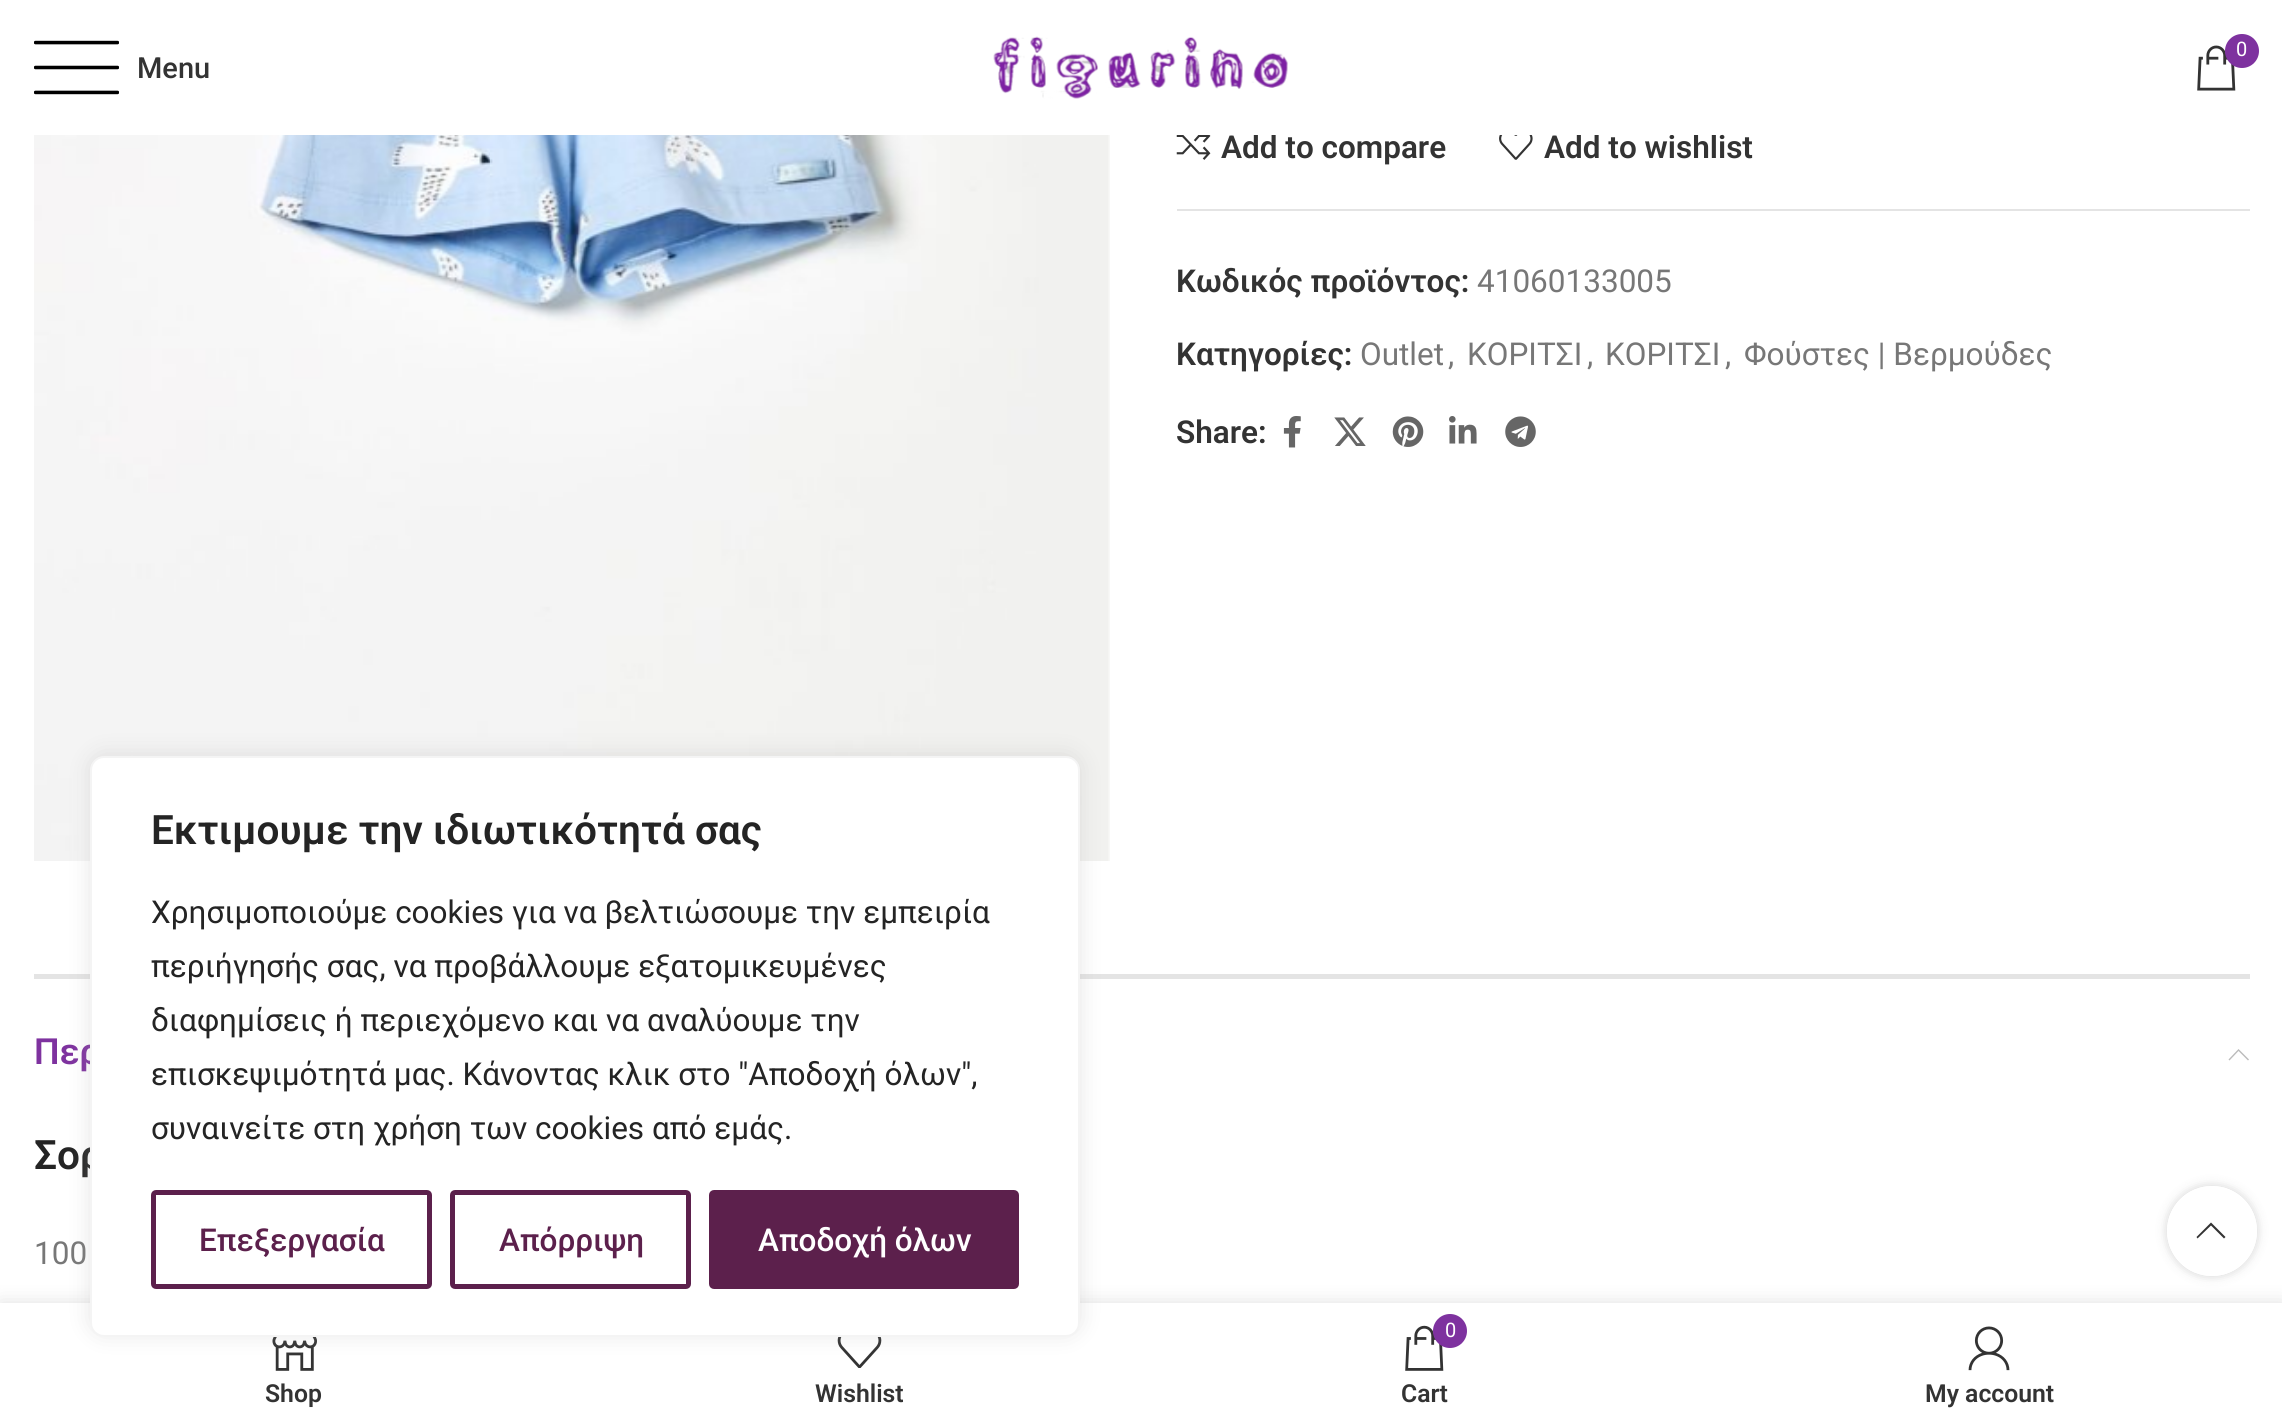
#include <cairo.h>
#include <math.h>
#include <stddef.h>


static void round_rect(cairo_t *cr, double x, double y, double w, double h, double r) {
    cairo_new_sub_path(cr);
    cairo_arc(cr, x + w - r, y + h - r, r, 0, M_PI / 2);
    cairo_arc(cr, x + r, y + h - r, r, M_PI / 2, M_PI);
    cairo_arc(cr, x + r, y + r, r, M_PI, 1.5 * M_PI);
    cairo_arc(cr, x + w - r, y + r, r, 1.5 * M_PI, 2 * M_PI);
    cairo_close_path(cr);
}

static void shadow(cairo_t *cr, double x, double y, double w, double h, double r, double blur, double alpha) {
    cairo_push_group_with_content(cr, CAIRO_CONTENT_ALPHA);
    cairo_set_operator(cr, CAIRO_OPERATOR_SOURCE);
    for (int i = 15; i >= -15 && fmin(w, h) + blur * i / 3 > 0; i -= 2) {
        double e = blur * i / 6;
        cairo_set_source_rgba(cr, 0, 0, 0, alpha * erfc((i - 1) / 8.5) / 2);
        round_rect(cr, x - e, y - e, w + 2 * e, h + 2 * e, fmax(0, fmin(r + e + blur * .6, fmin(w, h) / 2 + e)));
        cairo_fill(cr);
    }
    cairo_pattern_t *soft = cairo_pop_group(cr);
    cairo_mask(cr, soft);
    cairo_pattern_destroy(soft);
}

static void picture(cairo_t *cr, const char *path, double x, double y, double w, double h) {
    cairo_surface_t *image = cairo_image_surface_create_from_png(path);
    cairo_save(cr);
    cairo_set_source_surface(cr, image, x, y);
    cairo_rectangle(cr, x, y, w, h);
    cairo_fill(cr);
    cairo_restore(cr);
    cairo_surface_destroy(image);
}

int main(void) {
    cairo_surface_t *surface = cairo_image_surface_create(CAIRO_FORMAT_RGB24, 2282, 1426);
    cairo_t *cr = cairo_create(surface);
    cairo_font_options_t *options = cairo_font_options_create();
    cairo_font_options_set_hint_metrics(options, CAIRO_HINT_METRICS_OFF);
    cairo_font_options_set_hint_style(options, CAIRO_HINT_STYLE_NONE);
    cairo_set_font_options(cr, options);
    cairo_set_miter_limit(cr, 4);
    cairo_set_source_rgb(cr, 1, 1, 1);
    cairo_paint(cr);
    cairo_select_font_face(cr, "Roboto SemiBold", CAIRO_FONT_SLANT_NORMAL, CAIRO_FONT_WEIGHT_NORMAL);
    cairo_set_font_size(cr, 31.5);
    cairo_set_source_rgb(cr, 0.2, 0.2, 0.2);
    cairo_move_to(cr, 1221, 158);
    cairo_show_text(cr, "Add to compare");
    cairo_move_to(cr, 1544, 158);
    cairo_show_text(cr, "Add to wishlist");
    cairo_set_source_rgb(cr, 1, 1, 1);
    cairo_rectangle(cr, 1253, 134, 469, 1);
    cairo_fill(cr);
    picture(cr, "img1.png", 993, 36, 295, 63);
    picture(cr, "img2.png", 2197, 45, 39, 46);
    cairo_set_source_rgb(cr, 0.494, 0.196, 0.624);
    cairo_arc(cr, 2242, 51, 17, 0, 2 * M_PI);
    cairo_fill(cr);
    cairo_select_font_face(cr, "Roboto", CAIRO_FONT_SLANT_NORMAL, CAIRO_FONT_WEIGHT_NORMAL);
    cairo_set_font_size(cr, 20);
    cairo_set_source_rgb(cr, 1, 1, 1);
    cairo_move_to(cr, 2236, 56);
    cairo_show_text(cr, "0");
    picture(cr, "img3.png", 34, 40, 85, 55);
    cairo_select_font_face(cr, "Roboto Medium", CAIRO_FONT_SLANT_NORMAL, CAIRO_FONT_WEIGHT_NORMAL);
    cairo_set_font_size(cr, 29);
    cairo_set_source_rgb(cr, 0.2, 0.2, 0.2);
    cairo_move_to(cr, 137, 78);
    cairo_show_text(cr, "Menu");
    picture(cr, "img4.png", 34, 135, 1076, 726);
    picture(cr, "img5.png", 1176, 135, 35, 25);
    picture(cr, "img6.png", 1499, 135, 34, 25);
    cairo_set_source_rgb(cr, 0.894, 0.894, 0.894);
    cairo_rectangle(cr, 1177, 209, 1073, 2);
    cairo_fill(cr);
    cairo_select_font_face(cr, "Roboto SemiBold", CAIRO_FONT_SLANT_NORMAL, CAIRO_FONT_WEIGHT_NORMAL);
    cairo_set_font_size(cr, 31.5);
    cairo_set_source_rgb(cr, 0.2, 0.2, 0.2);
    cairo_move_to(cr, 1176, 292);
    cairo_show_text(cr, "Κωδικός προϊόντος:");
    cairo_select_font_face(cr, "Roboto", CAIRO_FONT_SLANT_NORMAL, CAIRO_FONT_WEIGHT_NORMAL);
    cairo_set_source_rgb(cr, 0.467, 0.467, 0.467);
    cairo_move_to(cr, 1477, 292);
    cairo_show_text(cr, "41060133005");
    cairo_select_font_face(cr, "Roboto SemiBold", CAIRO_FONT_SLANT_NORMAL, CAIRO_FONT_WEIGHT_NORMAL);
    cairo_set_source_rgb(cr, 0.2, 0.2, 0.2);
    cairo_move_to(cr, 1176, 365);
    cairo_show_text(cr, "Κατηγορίες:");
    cairo_select_font_face(cr, "Roboto", CAIRO_FONT_SLANT_NORMAL, CAIRO_FONT_WEIGHT_NORMAL);
    cairo_set_source_rgb(cr, 0.467, 0.467, 0.467);
    cairo_move_to(cr, 1360, 365);
    cairo_show_text(cr, "Outlet");
    cairo_move_to(cr, 1448, 365);
    cairo_show_text(cr, ",");
    cairo_move_to(cr, 1467, 365);
    cairo_show_text(cr, "ΚΟΡΙΤΣΙ");
    cairo_move_to(cr, 1587, 365);
    cairo_show_text(cr, ",");
    cairo_move_to(cr, 1605, 365);
    cairo_show_text(cr, "ΚΟΡΙΤΣΙ");
    cairo_move_to(cr, 1725, 365);
    cairo_show_text(cr, ",");
    cairo_move_to(cr, 1744, 365);
    cairo_show_text(cr, "Φούστες | Βερμούδες");
    cairo_select_font_face(cr, "Roboto SemiBold", CAIRO_FONT_SLANT_NORMAL, CAIRO_FONT_WEIGHT_NORMAL);
    cairo_set_source_rgb(cr, 0.2, 0.2, 0.2);
    cairo_move_to(cr, 1176, 443);
    cairo_show_text(cr, "Share:");
    picture(cr, "img7.png", 1283, 416, 18, 32);
    picture(cr, "img8.png", 1334, 417, 32, 29);
    picture(cr, "img9.png", 1392, 416, 32, 31);
    picture(cr, "img10.png", 1449, 416, 28, 28);
    picture(cr, "img11.png", 1505, 416, 31, 31);
    cairo_set_source_rgb(cr, 0.894, 0.894, 0.894);
    cairo_rectangle(cr, 34, 974, 2216, 5);
    cairo_fill(cr);
    cairo_set_font_size(cr, 36);
    cairo_set_source_rgb(cr, 0.494, 0.196, 0.624);
    cairo_move_to(cr, 34, 1064);
    cairo_show_text(cr, "Περ");
    cairo_set_source_rgb(cr, 0.733, 0.733, 0.733);
    cairo_new_path(cr);
    cairo_move_to(cr, 2229.5, 1060.5);
    cairo_line_to(cr, 2238.5, 1051);
    cairo_line_to(cr, 2248, 1060.5);
    cairo_line_to(cr, 2249, 1059.5);
    cairo_line_to(cr, 2238.5, 1049);
    cairo_line_to(cr, 2228.5, 1059.5);
    cairo_close_path(cr);
    cairo_fill(cr);
    cairo_set_font_size(cr, 40.5);
    cairo_set_source_rgb(cr, 0.141, 0.141, 0.141);
    cairo_move_to(cr, 34, 1169);
    cairo_show_text(cr, "Σορ");
    cairo_select_font_face(cr, "Roboto", CAIRO_FONT_SLANT_NORMAL, CAIRO_FONT_WEIGHT_NORMAL);
    cairo_set_font_size(cr, 31.5);
    cairo_set_source_rgb(cr, 0.467, 0.467, 0.467);
    cairo_move_to(cr, 34, 1264);
    cairo_show_text(cr, "100");
    cairo_save(cr);
    cairo_set_fill_rule(cr, CAIRO_FILL_RULE_EVEN_ODD);
    cairo_new_path(cr);
    cairo_move_to(cr, 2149, 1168);
    cairo_line_to(cr, 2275, 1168);
    cairo_line_to(cr, 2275, 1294);
    cairo_line_to(cr, 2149, 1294);
    cairo_close_path(cr);
    cairo_move_to(cr, 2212, 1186);
    cairo_curve_to(cr, 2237, 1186, 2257, 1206, 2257, 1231);
    cairo_curve_to(cr, 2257, 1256, 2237, 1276, 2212, 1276);
    cairo_curve_to(cr, 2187, 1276, 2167, 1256, 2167, 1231);
    cairo_curve_to(cr, 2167, 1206, 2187, 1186, 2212, 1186);
    cairo_close_path(cr);
    cairo_clip(cr);
    cairo_set_source_rgb(cr, 0, 0, 0);
    shadow(cr, 2167, 1186, 90, 90, 45, 5.5, 0.17);
    cairo_restore(cr);
    cairo_set_source_rgba(cr, 1, 1, 1, 0.9);
    cairo_arc(cr, 2212, 1231, 45, 0, 2 * M_PI);
    cairo_fill(cr);
    cairo_set_source_rgb(cr, 0, 0, 0);
    shadow(cr, 0, 1303, 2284, 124, 0, 10, 0.12);
    cairo_set_source_rgb(cr, 1, 1, 1);
    cairo_rectangle(cr, 0, 1303, 2282, 123);
    cairo_fill(cr);
    picture(cr, "img12.png", 272, 1337, 45, 34);
    picture(cr, "img13.png", 837, 1337, 45, 31);
    cairo_set_source_rgb(cr, 0.675, 0.671, 0.671);
    shadow(cr, 90, 754, 990, 580, 14, 11, 0.3);
    cairo_set_source_rgb(cr, 1, 1, 1);
    round_rect(cr, 91, 757, 988, 579, 13);
    cairo_fill_preserve(cr);
    cairo_set_source_rgb(cr, 0.957, 0.957, 0.957);
    cairo_stroke(cr);
    cairo_select_font_face(cr, "Roboto SemiBold", CAIRO_FONT_SLANT_NORMAL, CAIRO_FONT_WEIGHT_NORMAL);
    cairo_set_font_size(cr, 40.5);
    cairo_set_source_rgb(cr, 0.141, 0.141, 0.141);
    cairo_move_to(cr, 151, 844);
    cairo_show_text(cr, "Εκτιμουμε την ιδιωτικότητά σας");
    cairo_select_font_face(cr, "Roboto", CAIRO_FONT_SLANT_NORMAL, CAIRO_FONT_WEIGHT_NORMAL);
    cairo_set_font_size(cr, 31.5);
    cairo_move_to(cr, 151, 923);
    cairo_show_text(cr, "Χρησιμοποιούμε cookies για να βελτιώσουμε την εμπειρία");
    cairo_move_to(cr, 151, 977);
    cairo_show_text(cr, "περιήγησής σας, να προβάλλουμε εξατομικευμένες");
    cairo_move_to(cr, 151, 1031);
    cairo_show_text(cr, "διαφημίσεις ή περιεχόμενο και να αναλύουμε την");
    cairo_move_to(cr, 151, 1085);
    cairo_show_text(cr, "επισκεψιμότητά μας. Κάνοντας κλικ στο \"Αποδοχή όλων\",");
    cairo_move_to(cr, 151, 1139);
    cairo_show_text(cr, "συναινείτε στη χρήση των cookies από εμάς.");
    round_rect(cr, 153.5, 1192.5, 276, 94, 2.5);
    cairo_set_source_rgb(cr, 0.361, 0.125, 0.298);
    cairo_set_line_width(cr, 5);
    cairo_stroke(cr);
    cairo_select_font_face(cr, "Roboto Medium", CAIRO_FONT_SLANT_NORMAL, CAIRO_FONT_WEIGHT_NORMAL);
    cairo_move_to(cr, 199, 1251);
    cairo_show_text(cr, "Επεξεργασία");
    round_rect(cr, 452.5, 1192.5, 236, 94, 2.5);
    cairo_stroke(cr);
    cairo_move_to(cr, 499, 1251);
    cairo_show_text(cr, "Απόρριψη");
    round_rect(cr, 711.5, 1192.5, 305, 94, 2.5);
    cairo_fill_preserve(cr);
    cairo_stroke(cr);
    cairo_set_source_rgb(cr, 1, 1, 1);
    cairo_move_to(cr, 758, 1251);
    cairo_show_text(cr, "Αποδοχή όλων");
    cairo_set_source_rgb(cr, 0.2, 0.2, 0.2);
    cairo_new_path(cr);
    cairo_move_to(cr, 2224, 1238.5);
    cairo_line_to(cr, 2225.5, 1237);
    cairo_line_to(cr, 2211, 1222.5);
    cairo_line_to(cr, 2196.5, 1237);
    cairo_line_to(cr, 2197.5, 1238.5);
    cairo_line_to(cr, 2211, 1225.5);
    cairo_close_path(cr);
    cairo_fill(cr);
    cairo_select_font_face(cr, "Roboto SemiBold", CAIRO_FONT_SLANT_NORMAL, CAIRO_FONT_WEIGHT_NORMAL);
    cairo_set_font_size(cr, 24.75);
    cairo_move_to(cr, 265, 1402);
    cairo_show_text(cr, "Shop");
    cairo_move_to(cr, 815, 1402);
    cairo_show_text(cr, "Wishlist");
    picture(cr, "img14.png", 1405, 1325, 39, 46);
    cairo_set_source_rgb(cr, 0.494, 0.196, 0.624);
    cairo_arc(cr, 1450, 1331, 17, 0, 2 * M_PI);
    cairo_fill(cr);
    cairo_select_font_face(cr, "Roboto", CAIRO_FONT_SLANT_NORMAL, CAIRO_FONT_WEIGHT_NORMAL);
    cairo_set_font_size(cr, 20);
    cairo_set_source_rgb(cr, 1, 1, 1);
    cairo_move_to(cr, 1445, 1337);
    cairo_show_text(cr, "0");
    cairo_select_font_face(cr, "Roboto SemiBold", CAIRO_FONT_SLANT_NORMAL, CAIRO_FONT_WEIGHT_NORMAL);
    cairo_set_font_size(cr, 24.75);
    cairo_set_source_rgb(cr, 0.2, 0.2, 0.2);
    cairo_move_to(cr, 1401, 1402);
    cairo_show_text(cr, "Cart");
    picture(cr, "img15.png", 1968, 1326, 42, 45);
    cairo_move_to(cr, 1925, 1402);
    cairo_show_text(cr, "My account");
    cairo_surface_write_to_png(surface, "page.png");
    cairo_font_options_destroy(options);
    cairo_destroy(cr);
    cairo_surface_destroy(surface);
    return 0;
}
